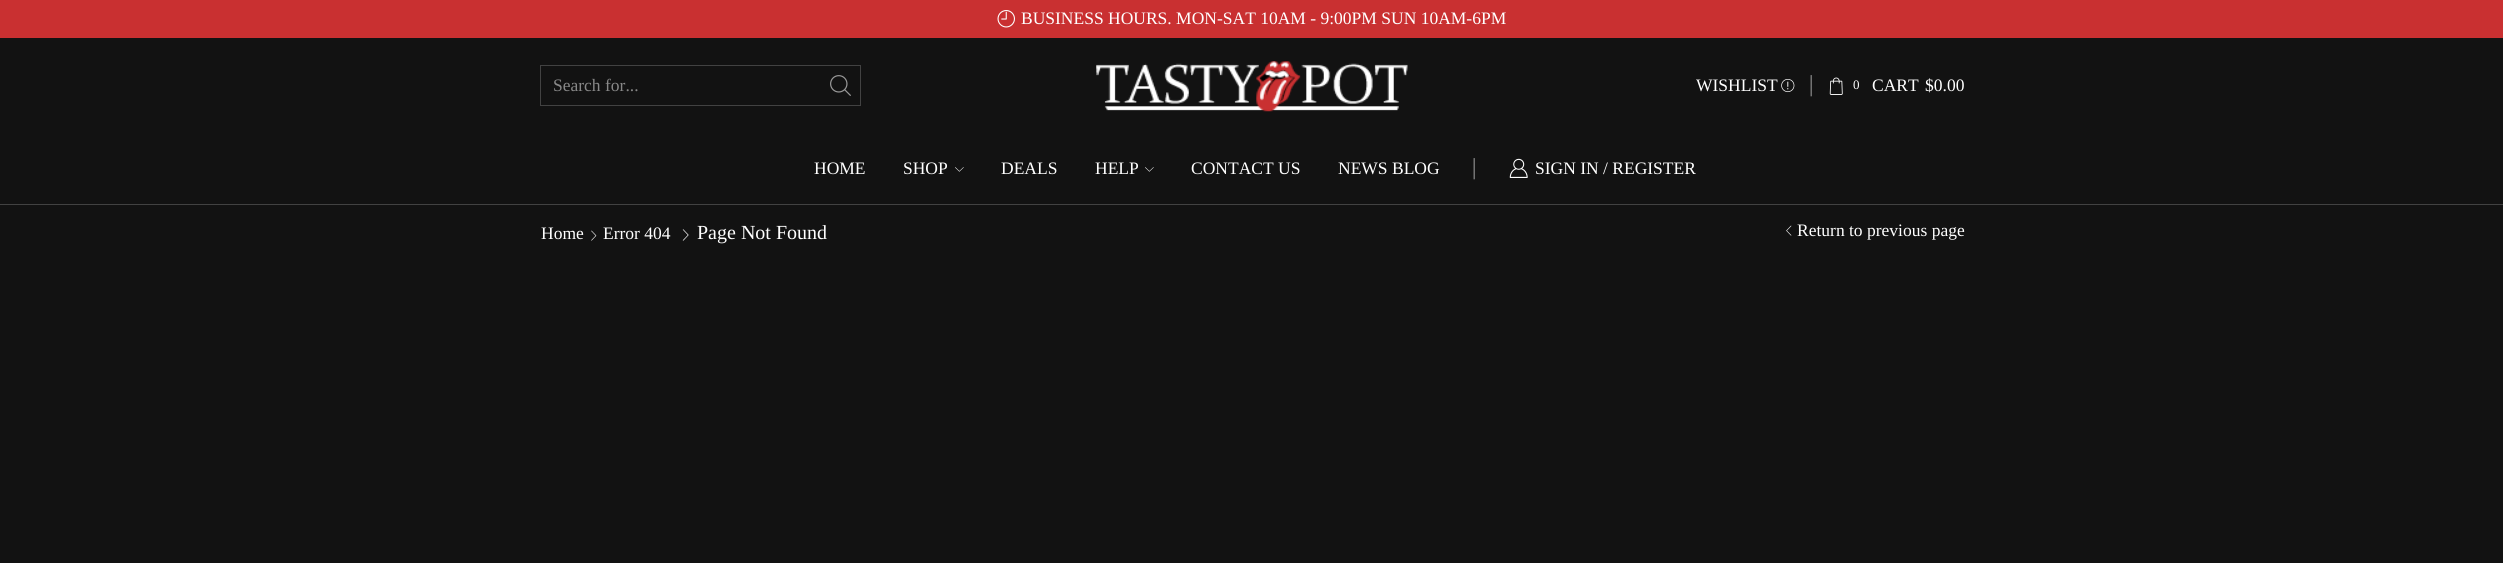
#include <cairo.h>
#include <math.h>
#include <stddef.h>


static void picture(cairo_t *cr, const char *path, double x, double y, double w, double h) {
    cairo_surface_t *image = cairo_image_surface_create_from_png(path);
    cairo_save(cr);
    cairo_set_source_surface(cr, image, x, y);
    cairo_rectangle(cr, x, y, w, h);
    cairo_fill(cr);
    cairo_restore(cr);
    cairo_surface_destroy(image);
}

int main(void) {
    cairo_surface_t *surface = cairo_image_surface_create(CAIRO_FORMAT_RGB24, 2503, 563);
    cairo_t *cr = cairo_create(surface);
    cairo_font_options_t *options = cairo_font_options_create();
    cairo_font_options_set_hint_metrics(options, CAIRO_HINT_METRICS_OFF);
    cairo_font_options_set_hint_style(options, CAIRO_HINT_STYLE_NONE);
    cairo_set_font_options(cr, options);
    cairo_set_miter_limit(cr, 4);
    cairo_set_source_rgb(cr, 0.071, 0.071, 0.071);
    cairo_paint(cr);
    cairo_set_source_rgb(cr, 0.788, 0.188, 0.192);
    cairo_rectangle(cr, 0, 0, 2503, 38);
    cairo_fill(cr);
    picture(cr, "img1.png", 997, 10, 18, 18);
    cairo_select_font_face(cr, "Liberation Serif", CAIRO_FONT_SLANT_NORMAL, CAIRO_FONT_WEIGHT_NORMAL);
    cairo_set_font_size(cr, 17.5);
    cairo_set_source_rgb(cr, 1, 1, 1);
    cairo_move_to(cr, 1021, 24);
    cairo_show_text(cr, "BUSINESS HOURS. MON-SAT 10AM - 9:00PM SUN 10AM-6PM");
    cairo_rectangle(cr, 540.5, 65.5, 320, 40);
    cairo_set_source_rgb(cr, 0.259, 0.259, 0.259);
    cairo_set_line_width(cr, 1);
    cairo_stroke(cr);
    cairo_set_source_rgb(cr, 0.533, 0.533, 0.533);
    cairo_move_to(cr, 553, 91);
    cairo_show_text(cr, "Search for...");
    picture(cr, "img2.png", 830, 75, 21, 21);
    picture(cr, "img3.png", 1096, 61, 312, 51);
    cairo_set_source_rgb(cr, 1, 1, 1);
    cairo_move_to(cr, 1696, 91);
    cairo_show_text(cr, "WISHLIST");
    picture(cr, "img4.png", 1781, 79, 14, 14);
    cairo_set_source_rgb(cr, 0.533, 0.533, 0.533);
    cairo_move_to(cr, 1805, 91);
    cairo_show_text(cr, "│");
    picture(cr, "img5.png", 1829, 77, 14, 18);
    cairo_set_font_size(cr, 13);
    cairo_set_source_rgb(cr, 1, 1, 1);
    cairo_move_to(cr, 1853, 89);
    cairo_show_text(cr, "0");
    cairo_set_font_size(cr, 17.5);
    cairo_move_to(cr, 1872, 91);
    cairo_show_text(cr, "CART");
    cairo_move_to(cr, 1925, 91);
    cairo_show_text(cr, "$0.00");
    cairo_set_source_rgb(cr, 0.259, 0.259, 0.259);
    cairo_rectangle(cr, 0, 204, 2503, 1);
    cairo_fill(cr);
    cairo_set_source_rgb(cr, 1, 1, 1);
    cairo_move_to(cr, 814, 174);
    cairo_show_text(cr, "HOME");
    cairo_move_to(cr, 903, 174);
    cairo_show_text(cr, "SHOP");
    picture(cr, "img6.png", 955, 167, 9, 5);
    cairo_move_to(cr, 1001, 174);
    cairo_show_text(cr, "DEALS");
    cairo_move_to(cr, 1095, 174);
    cairo_show_text(cr, "HELP");
    picture(cr, "img6.png", 1145, 167, 9, 5);
    cairo_move_to(cr, 1191, 174);
    cairo_show_text(cr, "CONTACT US");
    cairo_move_to(cr, 1338, 174);
    cairo_show_text(cr, "NEWS BLOG");
    cairo_set_source_rgb(cr, 0.533, 0.533, 0.533);
    cairo_move_to(cr, 1468, 174);
    cairo_show_text(cr, "│");
    picture(cr, "img7.png", 1509, 158, 19, 20);
    cairo_set_source_rgb(cr, 1, 1, 1);
    cairo_move_to(cr, 1535, 174);
    cairo_show_text(cr, "SIGN IN / REGISTER");
    cairo_move_to(cr, 541, 239);
    cairo_show_text(cr, "Home");
    picture(cr, "img8.png", 591, 230, 6, 11);
    cairo_move_to(cr, 603, 239);
    cairo_show_text(cr, "Error 404");
    picture(cr, "img9.png", 682, 229, 7, 12);
    cairo_set_font_size(cr, 20);
    cairo_move_to(cr, 697, 239);
    cairo_show_text(cr, "Page Not Found");
    picture(cr, "img10.png", 1786, 225, 6, 11);
    cairo_set_font_size(cr, 17.5);
    cairo_move_to(cr, 1797, 236);
    cairo_show_text(cr, "Return to previous page");
    cairo_surface_write_to_png(surface, "page.png");
    cairo_font_options_destroy(options);
    cairo_destroy(cr);
    cairo_surface_destroy(surface);
    return 0;
}
